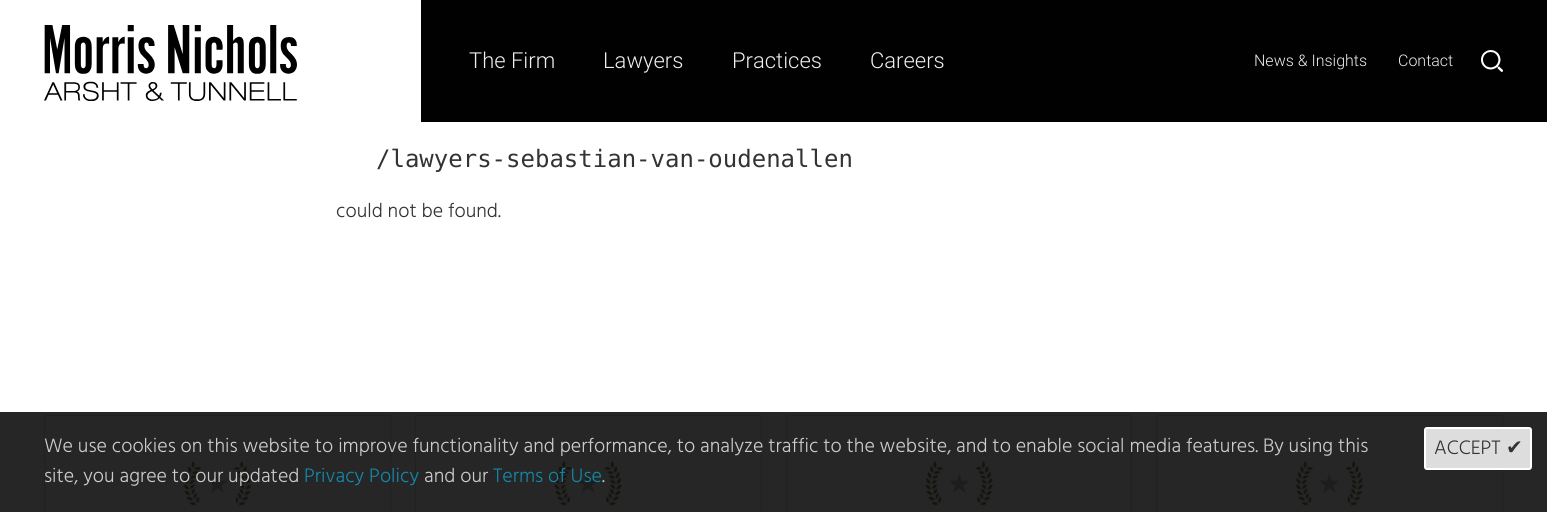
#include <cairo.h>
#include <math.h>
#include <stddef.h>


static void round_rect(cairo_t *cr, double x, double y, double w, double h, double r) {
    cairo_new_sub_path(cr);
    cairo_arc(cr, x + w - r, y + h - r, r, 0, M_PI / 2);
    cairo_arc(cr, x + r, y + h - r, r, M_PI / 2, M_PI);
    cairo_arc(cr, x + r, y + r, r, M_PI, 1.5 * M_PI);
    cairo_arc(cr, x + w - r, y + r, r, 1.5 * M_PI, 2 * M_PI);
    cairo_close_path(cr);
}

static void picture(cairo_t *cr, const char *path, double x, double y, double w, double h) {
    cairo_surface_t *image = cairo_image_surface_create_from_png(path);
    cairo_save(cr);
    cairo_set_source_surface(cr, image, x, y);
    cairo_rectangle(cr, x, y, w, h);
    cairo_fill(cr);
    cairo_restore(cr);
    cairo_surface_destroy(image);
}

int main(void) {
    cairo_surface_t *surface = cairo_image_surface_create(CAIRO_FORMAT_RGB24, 1547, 512);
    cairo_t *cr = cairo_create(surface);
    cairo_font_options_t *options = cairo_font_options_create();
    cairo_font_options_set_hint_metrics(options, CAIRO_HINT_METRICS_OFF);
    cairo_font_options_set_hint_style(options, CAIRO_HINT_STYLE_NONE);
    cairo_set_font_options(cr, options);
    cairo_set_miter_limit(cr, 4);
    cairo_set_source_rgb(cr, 1, 1, 1);
    cairo_paint(cr);
    cairo_set_source_rgb(cr, 0.149, 0.149, 0.149);
    cairo_rectangle(cr, 0, 412, 1547, 100);
    cairo_fill(cr);
    picture(cr, "img1.png", 44, 25, 253, 76);
    cairo_set_source_rgb(cr, 0.004, 0.004, 0.004);
    cairo_rectangle(cr, 421, 0, 1126, 122);
    cairo_fill(cr);
    cairo_select_font_face(cr, "Roboto Light", CAIRO_FONT_SLANT_NORMAL, CAIRO_FONT_WEIGHT_NORMAL);
    cairo_set_font_size(cr, 22);
    cairo_set_source_rgb(cr, 0.925, 0.941, 0.945);
    cairo_move_to(cr, 469, 68);
    cairo_show_text(cr, "The Firm");
    cairo_move_to(cr, 603, 68);
    cairo_show_text(cr, "Lawyers");
    cairo_move_to(cr, 732, 68);
    cairo_show_text(cr, "Practices");
    cairo_move_to(cr, 870, 68);
    cairo_show_text(cr, "Careers");
    cairo_set_font_size(cr, 16);
    cairo_move_to(cr, 1254, 66);
    cairo_show_text(cr, "News & Insights");
    cairo_move_to(cr, 1398, 66);
    cairo_show_text(cr, "Contact");
    picture(cr, "img2.png", 1481, 50, 22, 22);
    cairo_select_font_face(cr, "DejaVu Sans Mono", CAIRO_FONT_SLANT_NORMAL, CAIRO_FONT_WEIGHT_NORMAL);
    cairo_set_font_size(cr, 24);
    cairo_set_source_rgb(cr, 0.2, 0.2, 0.2);
    cairo_move_to(cr, 376, 167);
    cairo_show_text(cr, "/lawyers-sebastian-van-oudenallen");
    cairo_select_font_face(cr, "Hind Light", CAIRO_FONT_SLANT_NORMAL, CAIRO_FONT_WEIGHT_NORMAL);
    cairo_set_font_size(cr, 20);
    cairo_move_to(cr, 336, 217);
    cairo_show_text(cr, "could not be found.");
    cairo_rectangle(cr, 44.5, 415.5, 346, 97);
    cairo_set_source_rgb(cr, 0.129, 0.129, 0.129);
    cairo_set_line_width(cr, 1);
    cairo_stroke(cr);
    picture(cr, "img3.png", 183, 461, 69, 45);
    cairo_rectangle(cr, 415.5, 415.5, 346, 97);
    cairo_stroke(cr);
    picture(cr, "img4.png", 554, 460, 68, 46);
    cairo_rectangle(cr, 786.5, 415.5, 345, 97);
    cairo_stroke(cr);
    picture(cr, "img5.png", 925, 460, 68, 46);
    cairo_rectangle(cr, 1156.5, 415.5, 346, 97);
    cairo_stroke(cr);
    picture(cr, "img6.png", 1296, 460, 67, 46);
    cairo_set_source_rgb(cr, 0.8, 0.8, 0.8);
    cairo_move_to(cr, 44, 452);
    cairo_show_text(cr, "We use cookies on this website to improve functionality and performance, to analyze traffic to the website, and to enable social media features. By using this");
    cairo_move_to(cr, 44, 482);
    cairo_show_text(cr, "site, you agree to our updated");
    cairo_set_source_rgb(cr, 0.075, 0.533, 0.667);
    cairo_move_to(cr, 304, 482);
    cairo_show_text(cr, "Privacy Policy");
    cairo_set_source_rgb(cr, 0.8, 0.8, 0.8);
    cairo_move_to(cr, 424, 482);
    cairo_show_text(cr, "and our");
    cairo_set_source_rgb(cr, 0.075, 0.533, 0.667);
    cairo_move_to(cr, 493, 482);
    cairo_show_text(cr, "Terms of Use");
    cairo_set_source_rgb(cr, 0.8, 0.8, 0.8);
    cairo_move_to(cr, 602, 482);
    cairo_show_text(cr, ".");
    cairo_set_source_rgb(cr, 0.867, 0.867, 0.867);
    round_rect(cr, 1425, 428, 106, 41, 2);
    cairo_fill_preserve(cr);
    cairo_set_source_rgb(cr, 1, 1, 1);
    cairo_set_line_width(cr, 2);
    cairo_stroke(cr);
    cairo_set_source_rgb(cr, 0.2, 0.2, 0.2);
    cairo_move_to(cr, 1434, 454);
    cairo_show_text(cr, "ACCEPT");
    cairo_select_font_face(cr, "DejaVu Sans", CAIRO_FONT_SLANT_NORMAL, CAIRO_FONT_WEIGHT_NORMAL);
    cairo_move_to(cr, 1506, 454);
    cairo_show_text(cr, "✔");
    cairo_surface_write_to_png(surface, "page.png");
    cairo_font_options_destroy(options);
    cairo_destroy(cr);
    cairo_surface_destroy(surface);
    return 0;
}
